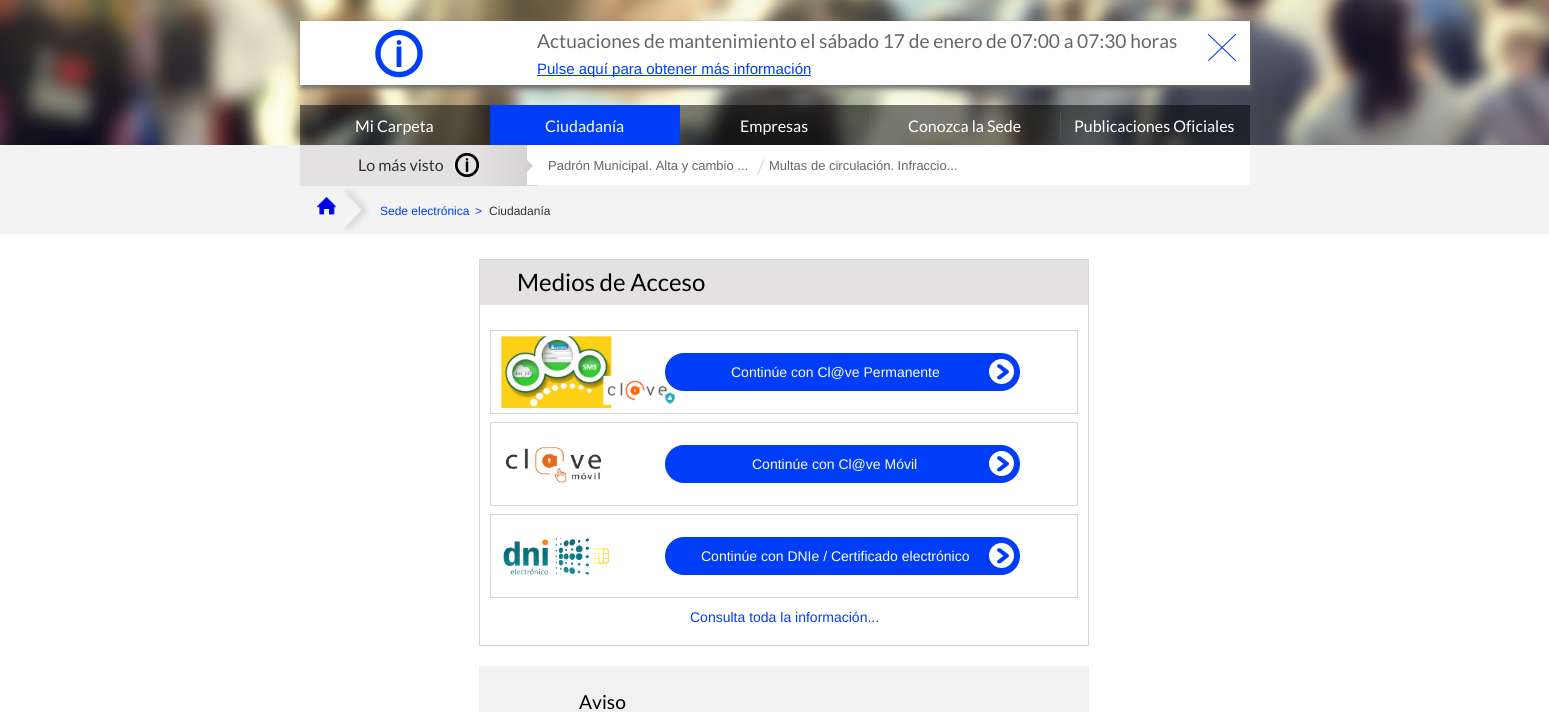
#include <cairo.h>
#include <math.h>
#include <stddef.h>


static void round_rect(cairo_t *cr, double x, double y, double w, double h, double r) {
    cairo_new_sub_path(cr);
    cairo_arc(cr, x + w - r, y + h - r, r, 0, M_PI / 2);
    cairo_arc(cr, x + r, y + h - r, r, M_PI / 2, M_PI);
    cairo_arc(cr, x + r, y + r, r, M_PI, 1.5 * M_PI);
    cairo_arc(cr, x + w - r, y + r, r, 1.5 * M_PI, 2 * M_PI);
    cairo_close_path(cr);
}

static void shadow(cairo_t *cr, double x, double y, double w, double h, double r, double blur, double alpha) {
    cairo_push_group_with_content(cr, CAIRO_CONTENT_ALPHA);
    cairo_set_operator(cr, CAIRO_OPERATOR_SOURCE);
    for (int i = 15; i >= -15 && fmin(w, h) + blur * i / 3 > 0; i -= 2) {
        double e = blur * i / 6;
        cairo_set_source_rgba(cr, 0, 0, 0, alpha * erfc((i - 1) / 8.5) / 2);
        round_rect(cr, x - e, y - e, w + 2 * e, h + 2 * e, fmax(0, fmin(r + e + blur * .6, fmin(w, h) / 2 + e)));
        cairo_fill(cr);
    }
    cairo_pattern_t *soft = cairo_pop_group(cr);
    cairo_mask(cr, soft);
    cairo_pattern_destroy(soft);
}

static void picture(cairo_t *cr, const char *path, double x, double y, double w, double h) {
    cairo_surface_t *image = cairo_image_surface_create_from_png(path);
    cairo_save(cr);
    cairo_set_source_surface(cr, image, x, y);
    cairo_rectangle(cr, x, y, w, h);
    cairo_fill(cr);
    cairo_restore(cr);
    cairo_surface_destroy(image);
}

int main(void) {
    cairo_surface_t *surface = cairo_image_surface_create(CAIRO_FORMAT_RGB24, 1549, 712);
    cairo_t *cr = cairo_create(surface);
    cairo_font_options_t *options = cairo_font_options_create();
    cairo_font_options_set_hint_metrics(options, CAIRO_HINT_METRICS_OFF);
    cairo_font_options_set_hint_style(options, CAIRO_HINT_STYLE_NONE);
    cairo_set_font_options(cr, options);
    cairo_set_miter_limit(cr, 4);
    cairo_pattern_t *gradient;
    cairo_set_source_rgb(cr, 1, 1, 1);
    cairo_paint(cr);
    picture(cr, "img1.png", 0, 0, 1549, 145);
    cairo_set_source_rgb(cr, 0.4, 0.4, 0.4);
    shadow(cr, 301, 24, 950, 64, 0, 3, 1);
    cairo_set_source_rgb(cr, 1, 1, 1);
    cairo_rectangle(cr, 300, 21, 950, 64);
    cairo_fill(cr);
    picture(cr, "img2.png", 375, 29, 48, 49);
    cairo_select_font_face(cr, "Lato", CAIRO_FONT_SLANT_NORMAL, CAIRO_FONT_WEIGHT_NORMAL);
    cairo_set_font_size(cr, 19.2);
    cairo_set_source_rgb(cr, 0.4, 0.4, 0.4);
    cairo_move_to(cr, 537, 48);
    cairo_show_text(cr, "Actuaciones de mantenimiento el sábado 17 de enero de 07:00 a 07:30 horas");
    picture(cr, "img3.png", 1207, 33, 30, 29);
    cairo_set_source_rgb(cr, 0, 0.239, 0.965);
    cairo_rectangle(cr, 537, 75, 274, 1);
    cairo_fill(cr);
    cairo_select_font_face(cr, "Liberation Sans", CAIRO_FONT_SLANT_NORMAL, CAIRO_FONT_WEIGHT_NORMAL);
    cairo_set_font_size(cr, 15);
    cairo_move_to(cr, 537, 74);
    cairo_show_text(cr, "Pulse aquí para obtener más información");
    cairo_set_source_rgba(cr, 0, 0, 0, 0.51);
    cairo_rectangle(cr, 300, 105, 190, 40);
    cairo_fill(cr);
    cairo_select_font_face(cr, "Lato", CAIRO_FONT_SLANT_NORMAL, CAIRO_FONT_WEIGHT_NORMAL);
    cairo_set_font_size(cr, 16);
    cairo_set_source_rgb(cr, 1, 1, 1);
    cairo_move_to(cr, 355, 132);
    cairo_show_text(cr, "Mi Carpeta");
    cairo_set_source_rgb(cr, 0, 0.239, 0.965);
    cairo_rectangle(cr, 490, 105, 190, 40);
    cairo_fill(cr);
    cairo_set_source_rgb(cr, 1, 1, 1);
    cairo_move_to(cr, 545, 132);
    cairo_show_text(cr, "Ciudadanía");
    cairo_set_source_rgba(cr, 0, 0, 0, 0.51);
    cairo_rectangle(cr, 680, 105, 190, 40);
    cairo_fill(cr);
    cairo_set_source_rgb(cr, 1, 1, 1);
    cairo_move_to(cr, 740, 132);
    cairo_show_text(cr, "Empresas");
    cairo_set_source_rgba(cr, 1, 1, 1, 0.3);
    cairo_rectangle(cr, 870, 112, 1, 27);
    cairo_fill(cr);
    cairo_set_source_rgba(cr, 0, 0, 0, 0.51);
    cairo_rectangle(cr, 870, 105, 190, 40);
    cairo_fill(cr);
    cairo_set_source_rgb(cr, 1, 1, 1);
    cairo_move_to(cr, 908, 132);
    cairo_show_text(cr, "Conozca la Sede");
    cairo_set_source_rgba(cr, 1, 1, 1, 0.3);
    cairo_rectangle(cr, 1060, 112, 1, 27);
    cairo_fill(cr);
    cairo_set_source_rgba(cr, 0, 0, 0, 0.51);
    cairo_rectangle(cr, 1060, 105, 190, 40);
    cairo_fill(cr);
    cairo_set_source_rgb(cr, 1, 1, 1);
    cairo_move_to(cr, 1074, 132);
    cairo_show_text(cr, "Publicaciones Oficiales");
    cairo_set_source_rgb(cr, 0.957, 0.953, 0.953);
    cairo_rectangle(cr, 0, 145, 1549, 89);
    cairo_fill(cr);
    gradient = cairo_pattern_create_linear(300, 166, 537, 166);
    cairo_pattern_add_color_stop_rgba(gradient, 0, 0.89, 0.882, 0.882, 1);
    cairo_pattern_add_color_stop_rgba(gradient, 0.75, 0.89, 0.882, 0.882, 1);
    cairo_pattern_add_color_stop_rgba(gradient, 1, 0.82, 0.812, 0.812, 1);
    cairo_set_source(cr, gradient);
    cairo_pattern_destroy(gradient);
    cairo_rectangle(cr, 300, 145, 237, 41);
    cairo_fill(cr);
    cairo_set_source_rgb(cr, 0.2, 0.2, 0.2);
    cairo_move_to(cr, 358, 171);
    cairo_show_text(cr, "Lo más visto");
    picture(cr, "img4.png", 453, 152, 26, 26);
    cairo_set_source_rgb(cr, 1, 1, 1);
    cairo_rectangle(cr, 527, 145, 723, 40);
    cairo_fill(cr);
    cairo_set_source_rgb(cr, 0.82, 0.812, 0.812);
    cairo_new_path(cr);
    cairo_move_to(cr, 527, 172);
    cairo_line_to(cr, 527, 160);
    cairo_line_to(cr, 533, 166);
    cairo_close_path(cr);
    cairo_fill(cr);
    cairo_select_font_face(cr, "Liberation Sans", CAIRO_FONT_SLANT_NORMAL, CAIRO_FONT_WEIGHT_NORMAL);
    cairo_set_font_size(cr, 13);
    cairo_set_source_rgb(cr, 0.4, 0.4, 0.4);
    cairo_move_to(cr, 548, 170);
    cairo_show_text(cr, "Padrón Municipal. Alta y cambio ...");
    cairo_select_font_face(cr, "Lato", CAIRO_FONT_SLANT_NORMAL, CAIRO_FONT_WEIGHT_NORMAL);
    cairo_set_font_size(cr, 20);
    cairo_set_source_rgb(cr, 0.867, 0.859, 0.859);
    cairo_move_to(cr, 757, 174);
    cairo_show_text(cr, "/");
    cairo_select_font_face(cr, "Liberation Sans", CAIRO_FONT_SLANT_NORMAL, CAIRO_FONT_WEIGHT_NORMAL);
    cairo_set_font_size(cr, 13);
    cairo_set_source_rgb(cr, 0.4, 0.4, 0.4);
    cairo_move_to(cr, 769, 170);
    cairo_show_text(cr, "Multas de circulación. Infraccio...");
    picture(cr, "img5.png", 317, 197, 19, 18);
    picture(cr, "img6.png", 343, 188, 26, 44);
    cairo_set_font_size(cr, 12);
    cairo_set_source_rgb(cr, 0, 0.239, 0.965);
    cairo_move_to(cr, 380, 215);
    cairo_show_text(cr, "Sede electrónica");
    cairo_move_to(cr, 475, 215);
    cairo_show_text(cr, ">");
    cairo_set_source_rgb(cr, 0.2, 0.2, 0.2);
    cairo_move_to(cr, 489, 215);
    cairo_show_text(cr, "Ciudadanía");
    cairo_save(cr);
    cairo_rectangle(cr, 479, 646, 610, 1);
    cairo_clip(cr);
    cairo_set_source_rgb(cr, 0, 0, 0);
    shadow(cr, 479, 260, 610, 387, 0, 0.5, 0.05);
    cairo_restore(cr);
    cairo_rectangle(cr, 479.5, 259.5, 609, 386);
    cairo_set_source_rgb(cr, 0.843, 0.843, 0.843);
    cairo_set_line_width(cr, 1);
    cairo_stroke(cr);
    cairo_set_source_rgb(cr, 0.89, 0.882, 0.882);
    cairo_rectangle(cr, 480, 260, 608, 45);
    cairo_fill(cr);
    cairo_select_font_face(cr, "Lato", CAIRO_FONT_SLANT_NORMAL, CAIRO_FONT_WEIGHT_NORMAL);
    cairo_set_font_size(cr, 24);
    cairo_set_source_rgb(cr, 0, 0, 0);
    cairo_move_to(cr, 517, 291);
    cairo_show_text(cr, "Medios de Acceso");
    cairo_rectangle(cr, 490.5, 330.5, 587, 83);
    cairo_set_source_rgb(cr, 0.843, 0.843, 0.843);
    cairo_stroke(cr);
    picture(cr, "img7.png", 501, 336, 175, 72);
    cairo_set_source_rgb(cr, 0, 0.239, 0.965);
    round_rect(cr, 665, 353, 355, 38, 19);
    cairo_fill(cr);
    cairo_select_font_face(cr, "Liberation Sans", CAIRO_FONT_SLANT_NORMAL, CAIRO_FONT_WEIGHT_NORMAL);
    cairo_set_font_size(cr, 14);
    cairo_set_source_rgb(cr, 1, 1, 1);
    cairo_move_to(cr, 731, 377);
    cairo_show_text(cr, "Continúe con Cl@ve Permanente");
    cairo_new_path(cr);
    cairo_arc(cr, 1001.5, 371.5, 12.5, 0, 2 * M_PI);
    cairo_fill(cr);
    picture(cr, "img8.png", 997, 364, 12, 16);
    cairo_rectangle(cr, 490.5, 422.5, 587, 83);
    cairo_set_source_rgb(cr, 0.843, 0.843, 0.843);
    cairo_stroke(cr);
    picture(cr, "img9.png", 505, 446, 97, 37);
    cairo_set_source_rgb(cr, 0, 0.239, 0.965);
    round_rect(cr, 665, 445, 355, 38, 19);
    cairo_fill(cr);
    cairo_set_source_rgb(cr, 1, 1, 1);
    cairo_move_to(cr, 752, 469);
    cairo_show_text(cr, "Continúe con Cl@ve Móvil");
    cairo_new_path(cr);
    cairo_arc(cr, 1001.5, 463.5, 12.5, 0, 2 * M_PI);
    cairo_fill(cr);
    picture(cr, "img8.png", 997, 456, 12, 16);
    cairo_rectangle(cr, 490.5, 514.5, 587, 83);
    cairo_set_source_rgb(cr, 0.843, 0.843, 0.843);
    cairo_stroke(cr);
    picture(cr, "img10.png", 503, 538, 106, 37);
    cairo_set_source_rgb(cr, 0, 0.239, 0.965);
    round_rect(cr, 665, 537, 355, 38, 19);
    cairo_fill(cr);
    cairo_set_source_rgb(cr, 1, 1, 1);
    cairo_move_to(cr, 701, 561);
    cairo_show_text(cr, "Continúe con DNIe / Certificado electrónico");
    cairo_new_path(cr);
    cairo_arc(cr, 1001.5, 555.5, 12.5, 0, 2 * M_PI);
    cairo_fill(cr);
    picture(cr, "img8.png", 997, 548, 12, 16);
    cairo_set_source_rgb(cr, 0, 0.239, 0.965);
    cairo_move_to(cr, 690, 622);
    cairo_show_text(cr, "Consulta toda la información...");
    cairo_set_source_rgb(cr, 0.945, 0.945, 0.945);
    cairo_rectangle(cr, 479, 666, 610, 46);
    cairo_fill(cr);
    cairo_select_font_face(cr, "Lato", CAIRO_FONT_SLANT_NORMAL, CAIRO_FONT_WEIGHT_NORMAL);
    cairo_set_font_size(cr, 19.2);
    cairo_set_source_rgb(cr, 0, 0, 0);
    cairo_move_to(cr, 579, 709);
    cairo_show_text(cr, "Aviso");
    cairo_surface_write_to_png(surface, "page.png");
    cairo_font_options_destroy(options);
    cairo_destroy(cr);
    cairo_surface_destroy(surface);
    return 0;
}
